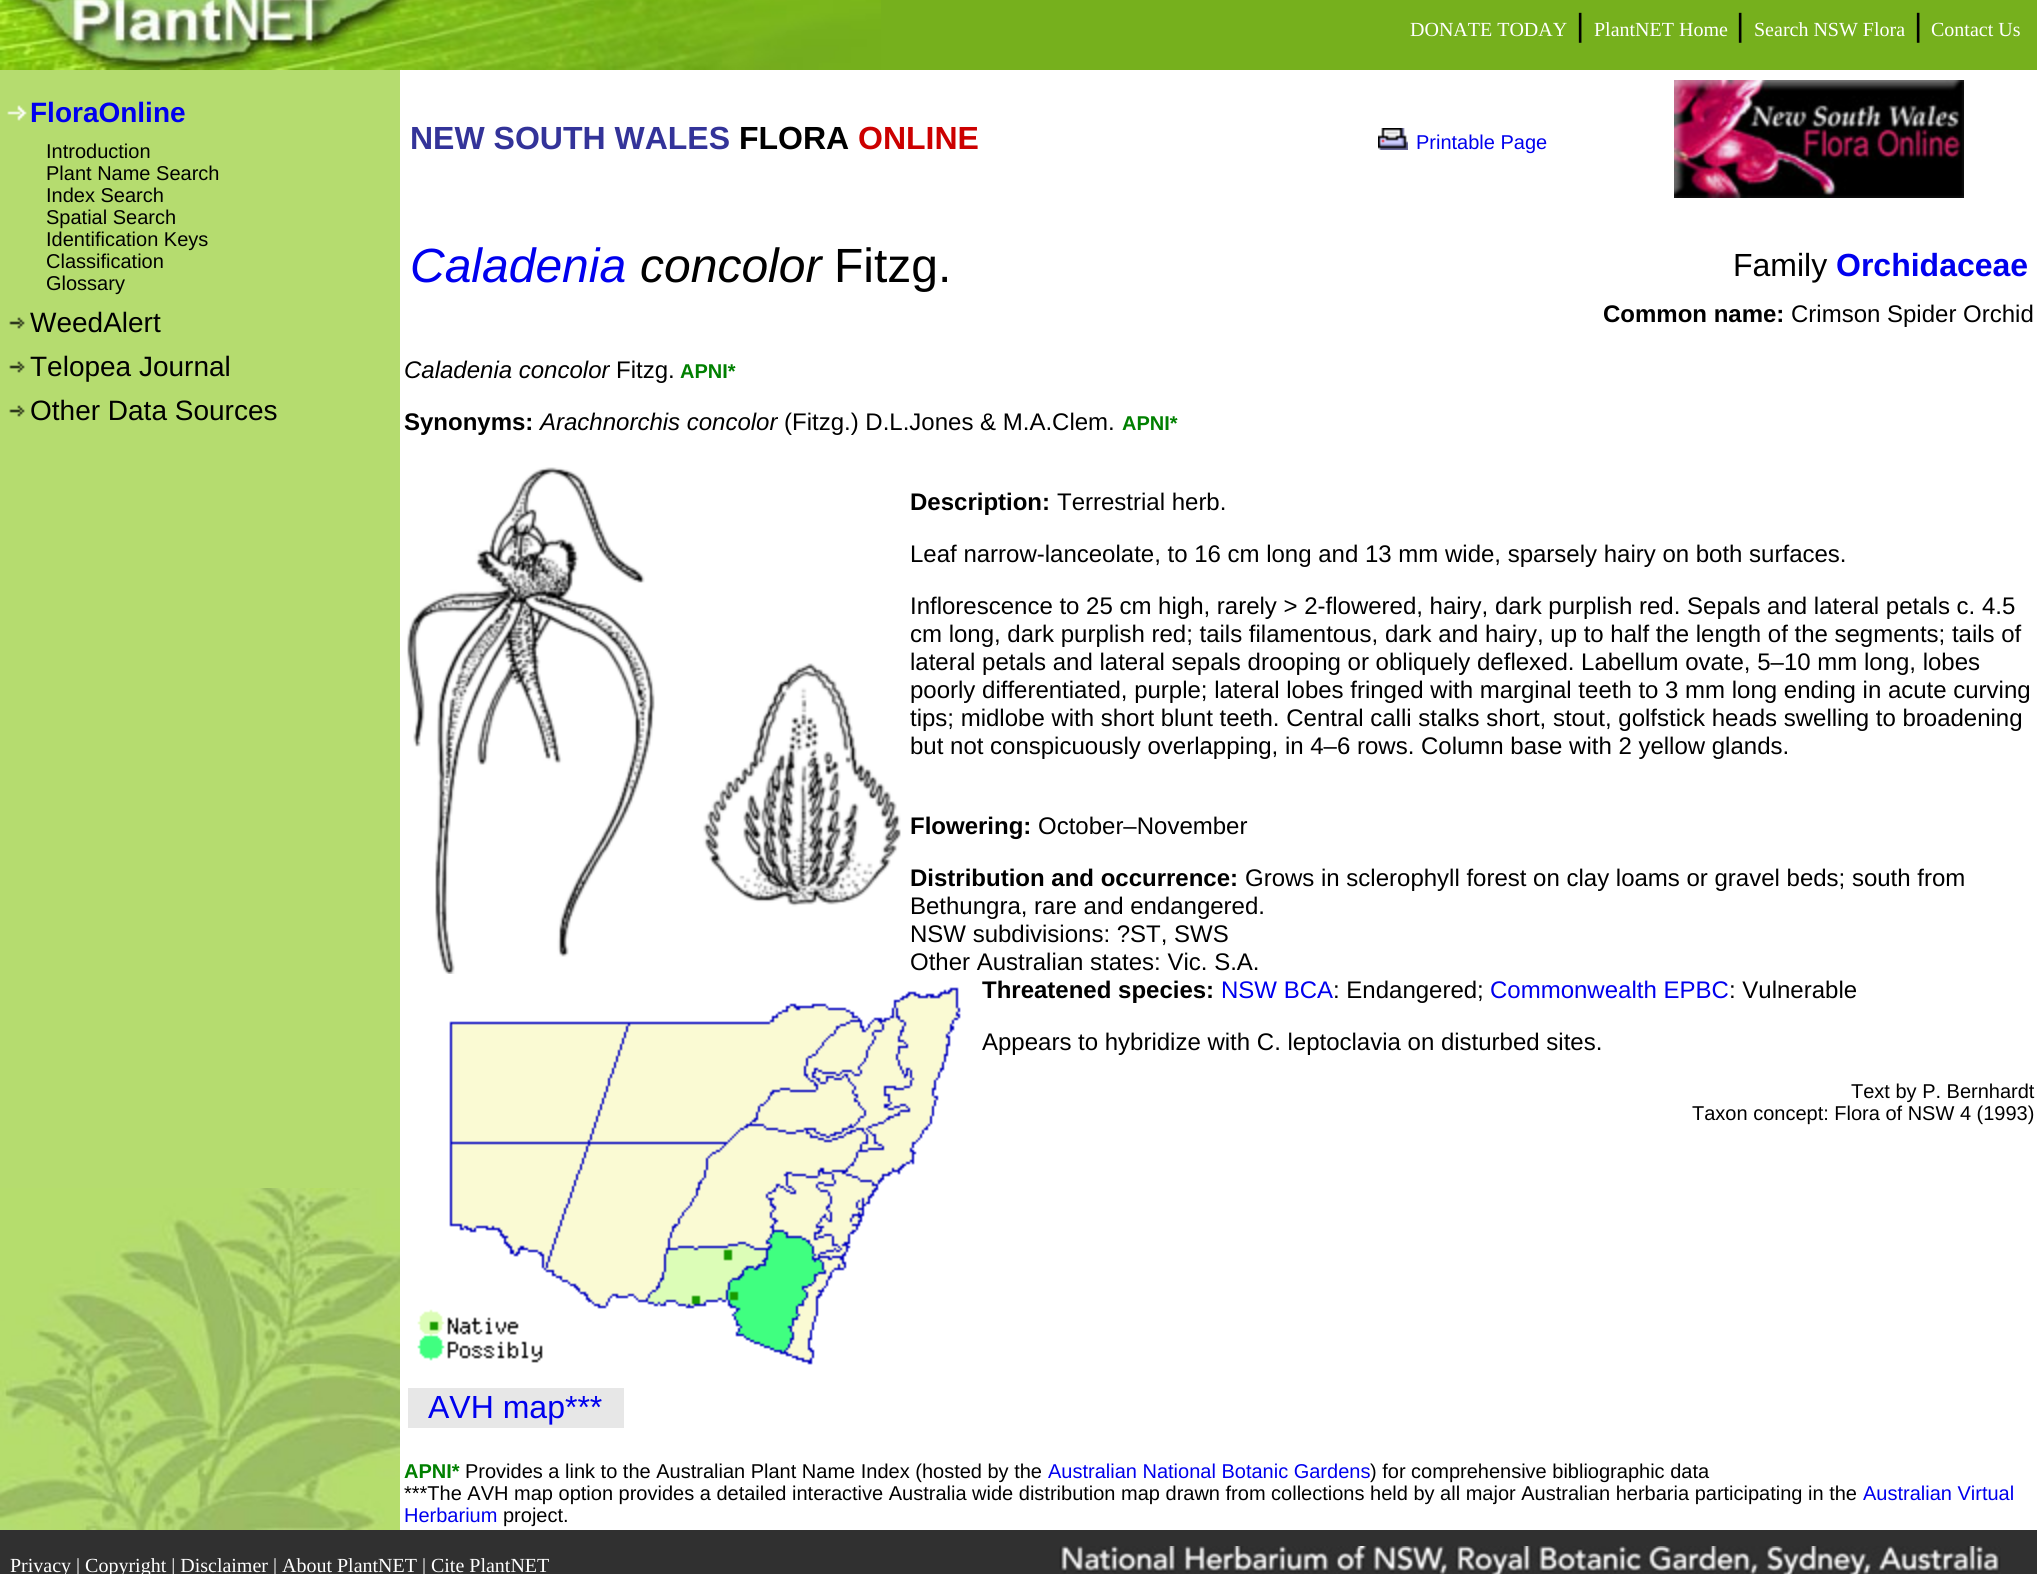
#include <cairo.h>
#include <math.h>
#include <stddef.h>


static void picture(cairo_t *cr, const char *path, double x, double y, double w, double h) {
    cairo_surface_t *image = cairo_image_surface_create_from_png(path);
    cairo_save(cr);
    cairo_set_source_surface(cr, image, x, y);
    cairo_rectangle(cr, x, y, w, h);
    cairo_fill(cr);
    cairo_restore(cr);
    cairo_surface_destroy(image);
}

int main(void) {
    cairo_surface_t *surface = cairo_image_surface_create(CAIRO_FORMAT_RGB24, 2037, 1574);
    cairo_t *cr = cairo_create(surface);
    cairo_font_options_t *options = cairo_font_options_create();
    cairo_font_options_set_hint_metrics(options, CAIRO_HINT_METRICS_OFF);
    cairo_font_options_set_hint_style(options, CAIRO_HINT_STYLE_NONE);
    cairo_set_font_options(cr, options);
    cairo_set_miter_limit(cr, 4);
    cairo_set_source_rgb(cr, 1, 1, 1);
    cairo_paint(cr);
    picture(cr, "img1.png", 0, 0, 402, 70);
    cairo_set_source_rgb(cr, 0.463, 0.69, 0.114);
    cairo_rectangle(cr, 881, 0, 1156, 70);
    cairo_fill(cr);
    picture(cr, "img2.png", 402, 0, 479, 70);
    cairo_select_font_face(cr, "Liberation Serif", CAIRO_FONT_SLANT_NORMAL, CAIRO_FONT_WEIGHT_NORMAL);
    cairo_set_font_size(cr, 20);
    cairo_set_source_rgb(cr, 1, 1, 1);
    cairo_move_to(cr, 1410, 36);
    cairo_show_text(cr, "DONATE TODAY");
    cairo_select_font_face(cr, "Liberation Sans", CAIRO_FONT_SLANT_NORMAL, CAIRO_FONT_WEIGHT_NORMAL);
    cairo_set_font_size(cr, 32);
    cairo_set_source_rgb(cr, 0, 0, 0);
    cairo_move_to(cr, 1576, 36);
    cairo_show_text(cr, "|");
    cairo_select_font_face(cr, "Liberation Serif", CAIRO_FONT_SLANT_NORMAL, CAIRO_FONT_WEIGHT_NORMAL);
    cairo_set_font_size(cr, 20);
    cairo_set_source_rgb(cr, 1, 1, 1);
    cairo_move_to(cr, 1594, 36);
    cairo_show_text(cr, "PlantNET Home");
    cairo_select_font_face(cr, "Liberation Sans", CAIRO_FONT_SLANT_NORMAL, CAIRO_FONT_WEIGHT_NORMAL);
    cairo_set_font_size(cr, 32);
    cairo_set_source_rgb(cr, 0, 0, 0);
    cairo_move_to(cr, 1736, 36);
    cairo_show_text(cr, "|");
    cairo_select_font_face(cr, "Liberation Serif", CAIRO_FONT_SLANT_NORMAL, CAIRO_FONT_WEIGHT_NORMAL);
    cairo_set_font_size(cr, 20);
    cairo_set_source_rgb(cr, 1, 1, 1);
    cairo_move_to(cr, 1754, 36);
    cairo_show_text(cr, "Search NSW Flora");
    cairo_select_font_face(cr, "Liberation Sans", CAIRO_FONT_SLANT_NORMAL, CAIRO_FONT_WEIGHT_NORMAL);
    cairo_set_font_size(cr, 32);
    cairo_set_source_rgb(cr, 0, 0, 0);
    cairo_move_to(cr, 1914, 36);
    cairo_show_text(cr, "|");
    cairo_select_font_face(cr, "Liberation Serif", CAIRO_FONT_SLANT_NORMAL, CAIRO_FONT_WEIGHT_NORMAL);
    cairo_set_font_size(cr, 20);
    cairo_set_source_rgb(cr, 1, 1, 1);
    cairo_move_to(cr, 1931, 36);
    cairo_show_text(cr, "Contact Us");
    cairo_set_source_rgb(cr, 0.71, 0.863, 0.435);
    cairo_rectangle(cr, 0, 70, 400, 1118);
    cairo_fill(cr);
    picture(cr, "img3.png", 0, 1188, 400, 342);
    picture(cr, "img4.png", 7, 105, 20, 16);
    cairo_select_font_face(cr, "Liberation Sans", CAIRO_FONT_SLANT_NORMAL, CAIRO_FONT_WEIGHT_BOLD);
    cairo_set_font_size(cr, 28);
    cairo_set_source_rgb(cr, 0, 0, 0.933);
    cairo_move_to(cr, 30, 122);
    cairo_show_text(cr, "FloraOnline");
    cairo_select_font_face(cr, "Liberation Sans", CAIRO_FONT_SLANT_NORMAL, CAIRO_FONT_WEIGHT_NORMAL);
    cairo_set_font_size(cr, 20);
    cairo_set_source_rgb(cr, 0, 0, 0);
    cairo_move_to(cr, 46, 158);
    cairo_show_text(cr, "Introduction");
    cairo_move_to(cr, 46, 180);
    cairo_show_text(cr, "Plant Name Search");
    cairo_move_to(cr, 46, 202);
    cairo_show_text(cr, "Index Search");
    cairo_move_to(cr, 46, 224);
    cairo_show_text(cr, "Spatial Search");
    cairo_move_to(cr, 46, 246);
    cairo_show_text(cr, "Identification Keys");
    cairo_move_to(cr, 46, 268);
    cairo_show_text(cr, "Classification");
    cairo_move_to(cr, 46, 290);
    cairo_show_text(cr, "Glossary");
    picture(cr, "img5.png", 9, 317, 16, 12);
    cairo_set_font_size(cr, 28);
    cairo_move_to(cr, 30, 332);
    cairo_show_text(cr, "WeedAlert");
    picture(cr, "img5.png", 9, 361, 16, 12);
    cairo_move_to(cr, 30, 376);
    cairo_show_text(cr, "Telopea Journal");
    picture(cr, "img5.png", 9, 405, 16, 12);
    cairo_move_to(cr, 30, 420);
    cairo_show_text(cr, "Other Data Sources");
    cairo_select_font_face(cr, "Liberation Sans", CAIRO_FONT_SLANT_NORMAL, CAIRO_FONT_WEIGHT_BOLD);
    cairo_set_font_size(cr, 32);
    cairo_set_source_rgb(cr, 0.2, 0.2, 0.6);
    cairo_move_to(cr, 410, 149);
    cairo_show_text(cr, "NEW SOUTH WALES");
    cairo_set_source_rgb(cr, 0, 0, 0);
    cairo_move_to(cr, 739, 149);
    cairo_show_text(cr, "FLORA");
    cairo_set_source_rgb(cr, 0.8, 0, 0);
    cairo_move_to(cr, 858, 149);
    cairo_show_text(cr, "ONLINE");
    picture(cr, "img6.png", 1378, 128, 30, 22);
    cairo_select_font_face(cr, "Liberation Sans", CAIRO_FONT_SLANT_NORMAL, CAIRO_FONT_WEIGHT_NORMAL);
    cairo_set_font_size(cr, 20);
    cairo_set_source_rgb(cr, 0, 0, 0.933);
    cairo_move_to(cr, 1416, 149);
    cairo_show_text(cr, "Printable Page");
    picture(cr, "img7.png", 1674, 80, 290, 118);
    cairo_select_font_face(cr, "Liberation Sans", CAIRO_FONT_SLANT_ITALIC, CAIRO_FONT_WEIGHT_NORMAL);
    cairo_set_font_size(cr, 48);
    cairo_move_to(cr, 410, 282);
    cairo_show_text(cr, "Caladenia");
    cairo_set_source_rgb(cr, 0, 0, 0);
    cairo_move_to(cr, 640, 282);
    cairo_show_text(cr, "concolor");
    cairo_select_font_face(cr, "Liberation Sans", CAIRO_FONT_SLANT_NORMAL, CAIRO_FONT_WEIGHT_NORMAL);
    cairo_move_to(cr, 834, 282);
    cairo_show_text(cr, "Fitzg.");
    cairo_set_font_size(cr, 32);
    cairo_move_to(cr, 1733, 276);
    cairo_show_text(cr, "Family");
    cairo_select_font_face(cr, "Liberation Sans", CAIRO_FONT_SLANT_NORMAL, CAIRO_FONT_WEIGHT_BOLD);
    cairo_set_source_rgb(cr, 0, 0, 0.933);
    cairo_move_to(cr, 1836, 276);
    cairo_show_text(cr, "Orchidaceae");
    cairo_set_font_size(cr, 24);
    cairo_set_source_rgb(cr, 0, 0, 0);
    cairo_move_to(cr, 1603, 322);
    cairo_show_text(cr, "Common name:");
    cairo_select_font_face(cr, "Liberation Sans", CAIRO_FONT_SLANT_NORMAL, CAIRO_FONT_WEIGHT_NORMAL);
    cairo_move_to(cr, 1791, 322);
    cairo_show_text(cr, "Crimson Spider Orchid");
    cairo_select_font_face(cr, "Liberation Sans", CAIRO_FONT_SLANT_ITALIC, CAIRO_FONT_WEIGHT_NORMAL);
    cairo_move_to(cr, 404, 378);
    cairo_show_text(cr, "Caladenia concolor");
    cairo_select_font_face(cr, "Liberation Sans", CAIRO_FONT_SLANT_NORMAL, CAIRO_FONT_WEIGHT_NORMAL);
    cairo_move_to(cr, 616, 378);
    cairo_show_text(cr, "Fitzg.");
    cairo_select_font_face(cr, "Liberation Sans", CAIRO_FONT_SLANT_NORMAL, CAIRO_FONT_WEIGHT_BOLD);
    cairo_set_font_size(cr, 20);
    cairo_set_source_rgb(cr, 0, 0.502, 0);
    cairo_move_to(cr, 680, 378);
    cairo_show_text(cr, "APNI*");
    cairo_set_font_size(cr, 24);
    cairo_set_source_rgb(cr, 0, 0, 0);
    cairo_move_to(cr, 404, 430);
    cairo_show_text(cr, "Synonyms:");
    cairo_select_font_face(cr, "Liberation Sans", CAIRO_FONT_SLANT_ITALIC, CAIRO_FONT_WEIGHT_NORMAL);
    cairo_move_to(cr, 540, 430);
    cairo_show_text(cr, "Arachnorchis concolor");
    cairo_select_font_face(cr, "Liberation Sans", CAIRO_FONT_SLANT_NORMAL, CAIRO_FONT_WEIGHT_NORMAL);
    cairo_move_to(cr, 784, 430);
    cairo_show_text(cr, "(Fitzg.) D.L.Jones & M.A.Clem.");
    cairo_select_font_face(cr, "Liberation Sans", CAIRO_FONT_SLANT_NORMAL, CAIRO_FONT_WEIGHT_BOLD);
    cairo_set_font_size(cr, 20);
    cairo_set_source_rgb(cr, 0, 0.502, 0);
    cairo_move_to(cr, 1122, 430);
    cairo_show_text(cr, "APNI*");
    picture(cr, "img8.png", 407, 467, 494, 507);
    cairo_set_font_size(cr, 24);
    cairo_set_source_rgb(cr, 0, 0, 0);
    cairo_move_to(cr, 910, 510);
    cairo_show_text(cr, "Description:");
    cairo_select_font_face(cr, "Liberation Sans", CAIRO_FONT_SLANT_NORMAL, CAIRO_FONT_WEIGHT_NORMAL);
    cairo_move_to(cr, 1057, 510);
    cairo_show_text(cr, "Terrestrial herb.");
    cairo_move_to(cr, 910, 562);
    cairo_show_text(cr, "Leaf narrow-lanceolate, to 16 cm long and 13 mm wide, sparsely hairy on both surfaces.");
    cairo_move_to(cr, 910, 614);
    cairo_show_text(cr, "Inflorescence to 25 cm high, rarely > 2-flowered, hairy, dark purplish red. Sepals and lateral petals c. 4.5");
    cairo_move_to(cr, 910, 642);
    cairo_show_text(cr, "cm long, dark purplish red; tails filamentous, dark and hairy, up to half the length of the segments; tails of");
    cairo_move_to(cr, 910, 670);
    cairo_show_text(cr, "lateral petals and lateral sepals drooping or obliquely deflexed. Labellum ovate, 5–10 mm long, lobes");
    cairo_move_to(cr, 910, 698);
    cairo_show_text(cr, "poorly differentiated, purple; lateral lobes fringed with marginal teeth to 3 mm long ending in acute curving");
    cairo_move_to(cr, 910, 726);
    cairo_show_text(cr, "tips; midlobe with short blunt teeth. Central calli stalks short, stout, golfstick heads swelling to broadening");
    cairo_move_to(cr, 910, 754);
    cairo_show_text(cr, "but not conspicuously overlapping, in 4–6 rows. Column base with 2 yellow glands.");
    cairo_select_font_face(cr, "Liberation Sans", CAIRO_FONT_SLANT_NORMAL, CAIRO_FONT_WEIGHT_BOLD);
    cairo_move_to(cr, 910, 834);
    cairo_show_text(cr, "Flowering:");
    cairo_select_font_face(cr, "Liberation Sans", CAIRO_FONT_SLANT_NORMAL, CAIRO_FONT_WEIGHT_NORMAL);
    cairo_move_to(cr, 1038, 834);
    cairo_show_text(cr, "October–November");
    cairo_select_font_face(cr, "Liberation Sans", CAIRO_FONT_SLANT_NORMAL, CAIRO_FONT_WEIGHT_BOLD);
    cairo_move_to(cr, 910, 886);
    cairo_show_text(cr, "Distribution and occurrence:");
    cairo_select_font_face(cr, "Liberation Sans", CAIRO_FONT_SLANT_NORMAL, CAIRO_FONT_WEIGHT_NORMAL);
    cairo_move_to(cr, 1245, 886);
    cairo_show_text(cr, "Grows in sclerophyll forest on clay loams or gravel beds; south from");
    cairo_move_to(cr, 910, 914);
    cairo_show_text(cr, "Bethungra, rare and endangered.");
    cairo_move_to(cr, 910, 942);
    cairo_show_text(cr, "NSW subdivisions: ?ST, SWS");
    cairo_move_to(cr, 910, 970);
    cairo_show_text(cr, "Other Australian states: Vic. S.A.");
    cairo_select_font_face(cr, "Liberation Sans", CAIRO_FONT_SLANT_NORMAL, CAIRO_FONT_WEIGHT_BOLD);
    cairo_move_to(cr, 982, 998);
    cairo_show_text(cr, "Threatened species:");
    cairo_select_font_face(cr, "Liberation Sans", CAIRO_FONT_SLANT_NORMAL, CAIRO_FONT_WEIGHT_NORMAL);
    cairo_set_source_rgb(cr, 0, 0, 0.933);
    cairo_move_to(cr, 1221, 998);
    cairo_show_text(cr, "NSW BCA");
    cairo_set_source_rgb(cr, 0, 0, 0);
    cairo_move_to(cr, 1333, 998);
    cairo_show_text(cr, ": Endangered;");
    cairo_set_source_rgb(cr, 0, 0, 0.933);
    cairo_move_to(cr, 1490, 998);
    cairo_show_text(cr, "Commonwealth EPBC");
    cairo_set_source_rgb(cr, 0, 0, 0);
    cairo_move_to(cr, 1729, 998);
    cairo_show_text(cr, ": Vulnerable");
    picture(cr, "img9.png", 417, 987, 544, 378);
    cairo_set_source_rgb(cr, 0.906, 0.906, 0.906);
    cairo_rectangle(cr, 408, 1388, 216, 40);
    cairo_fill(cr);
    cairo_set_font_size(cr, 32);
    cairo_set_source_rgb(cr, 0, 0, 0.933);
    cairo_move_to(cr, 428, 1418);
    cairo_show_text(cr, "AVH map***");
    cairo_set_font_size(cr, 24);
    cairo_set_source_rgb(cr, 0, 0, 0);
    cairo_move_to(cr, 982, 1050);
    cairo_show_text(cr, "Appears to hybridize with C. leptoclavia on disturbed sites.");
    cairo_set_font_size(cr, 20);
    cairo_move_to(cr, 1851, 1098);
    cairo_show_text(cr, "Text by P. Bernhardt");
    cairo_move_to(cr, 1692, 1120);
    cairo_show_text(cr, "Taxon concept: Flora of NSW 4 (1993)");
    cairo_select_font_face(cr, "Liberation Sans", CAIRO_FONT_SLANT_NORMAL, CAIRO_FONT_WEIGHT_BOLD);
    cairo_set_source_rgb(cr, 0, 0.502, 0);
    cairo_move_to(cr, 404, 1478);
    cairo_show_text(cr, "APNI*");
    cairo_select_font_face(cr, "Liberation Sans", CAIRO_FONT_SLANT_NORMAL, CAIRO_FONT_WEIGHT_NORMAL);
    cairo_set_source_rgb(cr, 0, 0, 0);
    cairo_move_to(cr, 465, 1478);
    cairo_show_text(cr, "Provides a link to the Australian Plant Name Index (hosted by the");
    cairo_set_source_rgb(cr, 0, 0, 0.933);
    cairo_move_to(cr, 1048, 1478);
    cairo_show_text(cr, "Australian National Botanic Gardens");
    cairo_set_source_rgb(cr, 0, 0, 0);
    cairo_move_to(cr, 1370, 1478);
    cairo_show_text(cr, ") for comprehensive bibliographic data");
    cairo_move_to(cr, 404, 1500);
    cairo_show_text(cr, "***The AVH map option provides a detailed interactive Australia wide distribution map drawn from collections held by all major Australian herbaria participating in the");
    cairo_set_source_rgb(cr, 0, 0, 0.933);
    cairo_move_to(cr, 1863, 1500);
    cairo_show_text(cr, "Australian Virtual");
    cairo_move_to(cr, 404, 1522);
    cairo_show_text(cr, "Herbarium");
    cairo_set_source_rgb(cr, 0, 0, 0);
    cairo_move_to(cr, 503, 1522);
    cairo_show_text(cr, "project.");
    cairo_set_source_rgb(cr, 0.188, 0.188, 0.188);
    cairo_rectangle(cr, 0, 1530, 2037, 44);
    cairo_fill(cr);
    cairo_select_font_face(cr, "Liberation Serif", CAIRO_FONT_SLANT_NORMAL, CAIRO_FONT_WEIGHT_NORMAL);
    cairo_set_source_rgb(cr, 1, 1, 1);
    cairo_move_to(cr, 10, 1572);
    cairo_show_text(cr, "Privacy | Copyright | Disclaimer | About PlantNET | Cite PlantNET");
    picture(cr, "img10.png", 1059, 1546, 942, 28);
    cairo_surface_write_to_png(surface, "page.png");
    cairo_font_options_destroy(options);
    cairo_destroy(cr);
    cairo_surface_destroy(surface);
    return 0;
}
